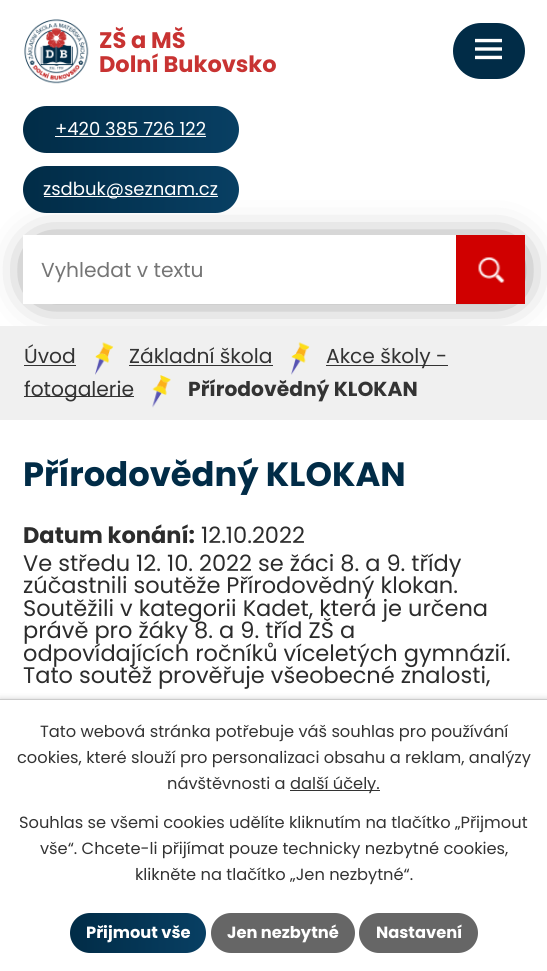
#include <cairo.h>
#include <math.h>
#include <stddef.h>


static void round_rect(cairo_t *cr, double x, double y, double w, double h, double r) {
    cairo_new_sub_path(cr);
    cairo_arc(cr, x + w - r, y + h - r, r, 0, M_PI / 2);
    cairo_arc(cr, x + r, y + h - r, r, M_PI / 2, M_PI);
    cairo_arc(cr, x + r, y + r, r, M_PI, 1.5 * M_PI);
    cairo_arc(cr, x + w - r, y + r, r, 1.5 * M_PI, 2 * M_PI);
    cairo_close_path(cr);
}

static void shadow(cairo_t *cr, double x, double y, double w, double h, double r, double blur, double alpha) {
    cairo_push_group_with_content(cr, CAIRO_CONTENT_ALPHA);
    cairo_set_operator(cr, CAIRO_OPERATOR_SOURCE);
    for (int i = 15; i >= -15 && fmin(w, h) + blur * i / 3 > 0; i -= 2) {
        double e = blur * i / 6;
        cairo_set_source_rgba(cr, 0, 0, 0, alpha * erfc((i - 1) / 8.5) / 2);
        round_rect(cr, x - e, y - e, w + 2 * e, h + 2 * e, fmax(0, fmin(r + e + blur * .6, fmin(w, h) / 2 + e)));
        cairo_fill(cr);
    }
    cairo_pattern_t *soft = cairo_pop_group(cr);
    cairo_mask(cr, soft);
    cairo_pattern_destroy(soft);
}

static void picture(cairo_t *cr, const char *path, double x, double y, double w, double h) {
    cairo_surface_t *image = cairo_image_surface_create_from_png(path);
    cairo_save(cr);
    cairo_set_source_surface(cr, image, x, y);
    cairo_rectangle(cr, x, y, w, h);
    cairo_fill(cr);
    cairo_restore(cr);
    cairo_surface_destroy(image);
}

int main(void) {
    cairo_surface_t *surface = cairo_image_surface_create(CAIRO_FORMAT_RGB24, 547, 971);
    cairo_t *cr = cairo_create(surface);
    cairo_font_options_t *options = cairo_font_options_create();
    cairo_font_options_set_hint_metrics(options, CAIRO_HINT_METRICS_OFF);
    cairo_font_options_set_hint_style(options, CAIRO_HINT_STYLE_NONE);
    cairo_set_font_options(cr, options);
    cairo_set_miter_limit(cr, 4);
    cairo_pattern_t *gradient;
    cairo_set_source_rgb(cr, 1, 1, 1);
    cairo_paint(cr);
    picture(cr, "img1.png", 24, 19, 65, 65);
    cairo_select_font_face(cr, "Poppins", CAIRO_FONT_SLANT_NORMAL, CAIRO_FONT_WEIGHT_BOLD);
    cairo_set_font_size(cr, 22.5);
    cairo_set_source_rgb(cr, 0.784, 0.2, 0.196);
    cairo_move_to(cr, 99, 48);
    cairo_show_text(cr, "ZŠ a MŠ");
    cairo_move_to(cr, 99, 72);
    cairo_show_text(cr, "Dolní Bukovsko");
    gradient = cairo_pattern_create_linear(23, 129, 239, 129);
    cairo_pattern_add_color_stop_rgba(gradient, 0, 0.004, 0.173, 0.278, 1);
    cairo_pattern_add_color_stop_rgba(gradient, 1, 0.031, 0.247, 0.388, 1);
    cairo_set_source(cr, gradient);
    cairo_pattern_destroy(gradient);
    round_rect(cr, 23, 106, 216, 47, 23.5);
    cairo_fill(cr);
    cairo_select_font_face(cr, "Poppins", CAIRO_FONT_SLANT_NORMAL, CAIRO_FONT_WEIGHT_NORMAL);
    cairo_set_font_size(cr, 18);
    cairo_set_source_rgb(cr, 1, 1, 1);
    cairo_move_to(cr, 55, 135);
    cairo_show_text(cr, "+420 385 726 122");
    cairo_rectangle(cr, 55, 136, 151, 1);
    cairo_fill(cr);
    cairo_set_source_rgb(cr, 0, 0, 0);
    shadow(cr, 43, 255, 465, 31, 0, 22, 1);
    gradient = cairo_pattern_create_linear(23, 189, 239, 189);
    cairo_pattern_add_color_stop_rgba(gradient, 0, 0.004, 0.173, 0.278, 1);
    cairo_pattern_add_color_stop_rgba(gradient, 1, 0.031, 0.247, 0.388, 1);
    cairo_set_source(cr, gradient);
    cairo_pattern_destroy(gradient);
    round_rect(cr, 23, 166, 216, 47, 23.5);
    cairo_fill(cr);
    cairo_set_source_rgb(cr, 1, 1, 1);
    cairo_rectangle(cr, 44, 196, 174, 1);
    cairo_fill(cr);
    cairo_move_to(cr, 43, 195);
    cairo_show_text(cr, "zsdbuk@seznam.cz");
    cairo_rectangle(cr, 23, 235, 433, 69);
    cairo_fill(cr);
    cairo_set_font_size(cr, 20.25);
    cairo_set_source_rgb(cr, 0.459, 0.459, 0.459);
    cairo_move_to(cr, 41, 277);
    cairo_show_text(cr, "Vyhledat v textu");
    cairo_set_source_rgb(cr, 0.816, 0, 0);
    cairo_rectangle(cr, 456, 235, 69, 69);
    cairo_fill(cr);
    picture(cr, "img2.png", 478, 257, 27, 26);
    cairo_set_source_rgb(cr, 0.004, 0.173, 0.278);
    round_rect(cr, 453, 23, 72, 56, 28);
    cairo_fill(cr);
    picture(cr, "img3.png", 475, 38, 27, 22);
    cairo_set_source_rgb(cr, 0.941, 0.941, 0.941);
    cairo_rectangle(cr, 0, 326, 547, 94);
    cairo_fill(cr);
    cairo_set_source_rgb(cr, 0.2, 0.2, 0.2);
    cairo_move_to(cr, 24, 363);
    cairo_show_text(cr, "Úvod");
    cairo_rectangle(cr, 24, 365, 52, 1);
    cairo_fill(cr);
    picture(cr, "img4.png", 95, 342, 19, 33);
    cairo_move_to(cr, 129, 363);
    cairo_show_text(cr, "Základní škola");
    cairo_rectangle(cr, 129, 365, 144, 1);
    cairo_fill(cr);
    picture(cr, "img5.png", 291, 342, 19, 33);
    cairo_rectangle(cr, 326, 365, 122, 1);
    cairo_fill(cr);
    cairo_move_to(cr, 326, 363);
    cairo_show_text(cr, "Akce školy -");
    cairo_rectangle(cr, 24, 396, 110, 1);
    cairo_fill(cr);
    cairo_move_to(cr, 24, 396);
    cairo_show_text(cr, "fotogalerie");
    picture(cr, "img6.png", 152, 375, 19, 33);
    cairo_select_font_face(cr, "Poppins", CAIRO_FONT_SLANT_NORMAL, CAIRO_FONT_WEIGHT_BOLD);
    cairo_move_to(cr, 188, 396);
    cairo_show_text(cr, "Přírodovědný KLOKAN");
    cairo_set_font_size(cr, 33.75);
    cairo_set_source_rgb(cr, 0.004, 0.173, 0.278);
    cairo_move_to(cr, 23, 486);
    cairo_show_text(cr, "Přírodovědný KLOKAN");
    cairo_set_font_size(cr, 22.5);
    cairo_set_source_rgb(cr, 0.173, 0.173, 0.173);
    cairo_move_to(cr, 23, 543);
    cairo_show_text(cr, "Datum konání:");
    cairo_select_font_face(cr, "Poppins", CAIRO_FONT_SLANT_NORMAL, CAIRO_FONT_WEIGHT_NORMAL);
    cairo_move_to(cr, 201, 543);
    cairo_show_text(cr, "12.10.2022");
    cairo_move_to(cr, 23, 571);
    cairo_show_text(cr, "Ve středu 12. 10. 2022 se žáci 8. a 9. třídy");
    cairo_move_to(cr, 23, 593);
    cairo_show_text(cr, "zúčastnili soutěže Přírodovědný klokan.");
    cairo_move_to(cr, 23, 616);
    cairo_show_text(cr, "Soutěžili v kategorii Kadet, která je určena");
    cairo_move_to(cr, 23, 638);
    cairo_show_text(cr, "právě pro žáky 8. a 9. tříd ZŠ a");
    cairo_move_to(cr, 23, 661);
    cairo_show_text(cr, "odpovídajících ročníků víceletých gymnázií.");
    cairo_move_to(cr, 23, 683);
    cairo_show_text(cr, "Tato soutěž prověřuje všeobecné znalosti,");
    cairo_set_source_rgb(cr, 0, 0, 0);
    shadow(cr, 0, 699, 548, 272, 0, 3, 0.2);
    cairo_set_source_rgb(cr, 1, 1, 1);
    cairo_rectangle(cr, 0, 700, 547, 271);
    cairo_fill(cr);
    cairo_set_source_rgb(cr, 0.8, 0.8, 0.8);
    cairo_rectangle(cr, 0, 699, 547, 1);
    cairo_fill(cr);
    cairo_set_font_size(cr, 16.25);
    cairo_set_source_rgb(cr, 0.2, 0.2, 0.2);
    cairo_move_to(cr, 40, 737);
    cairo_show_text(cr, "Tato webová stránka potřebuje váš souhlas pro používání");
    cairo_move_to(cr, 17, 763);
    cairo_show_text(cr, "cookies, které slouží pro personalizaci obsahu a reklam, analýzy");
    cairo_move_to(cr, 167, 789);
    cairo_show_text(cr, "návštěvnosti a");
    cairo_rectangle(cr, 290, 790, 90, 1);
    cairo_fill(cr);
    cairo_move_to(cr, 290, 789);
    cairo_show_text(cr, "další účely.");
    cairo_move_to(cr, 19, 828);
    cairo_show_text(cr, "Souhlas se všemi cookies udělíte kliknutím na tlačítko „Přijmout");
    cairo_move_to(cr, 40, 854);
    cairo_show_text(cr, "vše“. Chcete-li přijímat pouze technicky nezbytné cookies,");
    cairo_move_to(cr, 135, 880);
    cairo_show_text(cr, "klikněte na tlačítko „Jen nezbytné“.");
    gradient = cairo_pattern_create_linear(70, 933, 206, 933);
    cairo_pattern_add_color_stop_rgba(gradient, 0, 0.004, 0.173, 0.278, 1);
    cairo_pattern_add_color_stop_rgba(gradient, 1, 0.031, 0.247, 0.388, 1);
    cairo_set_source(cr, gradient);
    cairo_pattern_destroy(gradient);
    round_rect(cr, 70, 913, 136, 40, 20);
    cairo_fill(cr);
    cairo_select_font_face(cr, "Poppins", CAIRO_FONT_SLANT_NORMAL, CAIRO_FONT_WEIGHT_BOLD);
    cairo_set_source_rgb(cr, 1, 1, 1);
    cairo_move_to(cr, 86, 938);
    cairo_show_text(cr, "Přijmout vše");
    cairo_set_source_rgb(cr, 0.4, 0.4, 0.4);
    round_rect(cr, 211, 913, 144, 40, 20);
    cairo_fill(cr);
    cairo_set_source_rgb(cr, 1, 1, 1);
    cairo_move_to(cr, 227, 938);
    cairo_show_text(cr, "Jen nezbytné");
    cairo_set_source_rgb(cr, 0.4, 0.4, 0.4);
    round_rect(cr, 359, 913, 119, 40, 20);
    cairo_fill(cr);
    cairo_set_source_rgb(cr, 1, 1, 1);
    cairo_move_to(cr, 376, 938);
    cairo_show_text(cr, "Nastavení");
    cairo_surface_write_to_png(surface, "page.png");
    cairo_font_options_destroy(options);
    cairo_destroy(cr);
    cairo_surface_destroy(surface);
    return 0;
}
